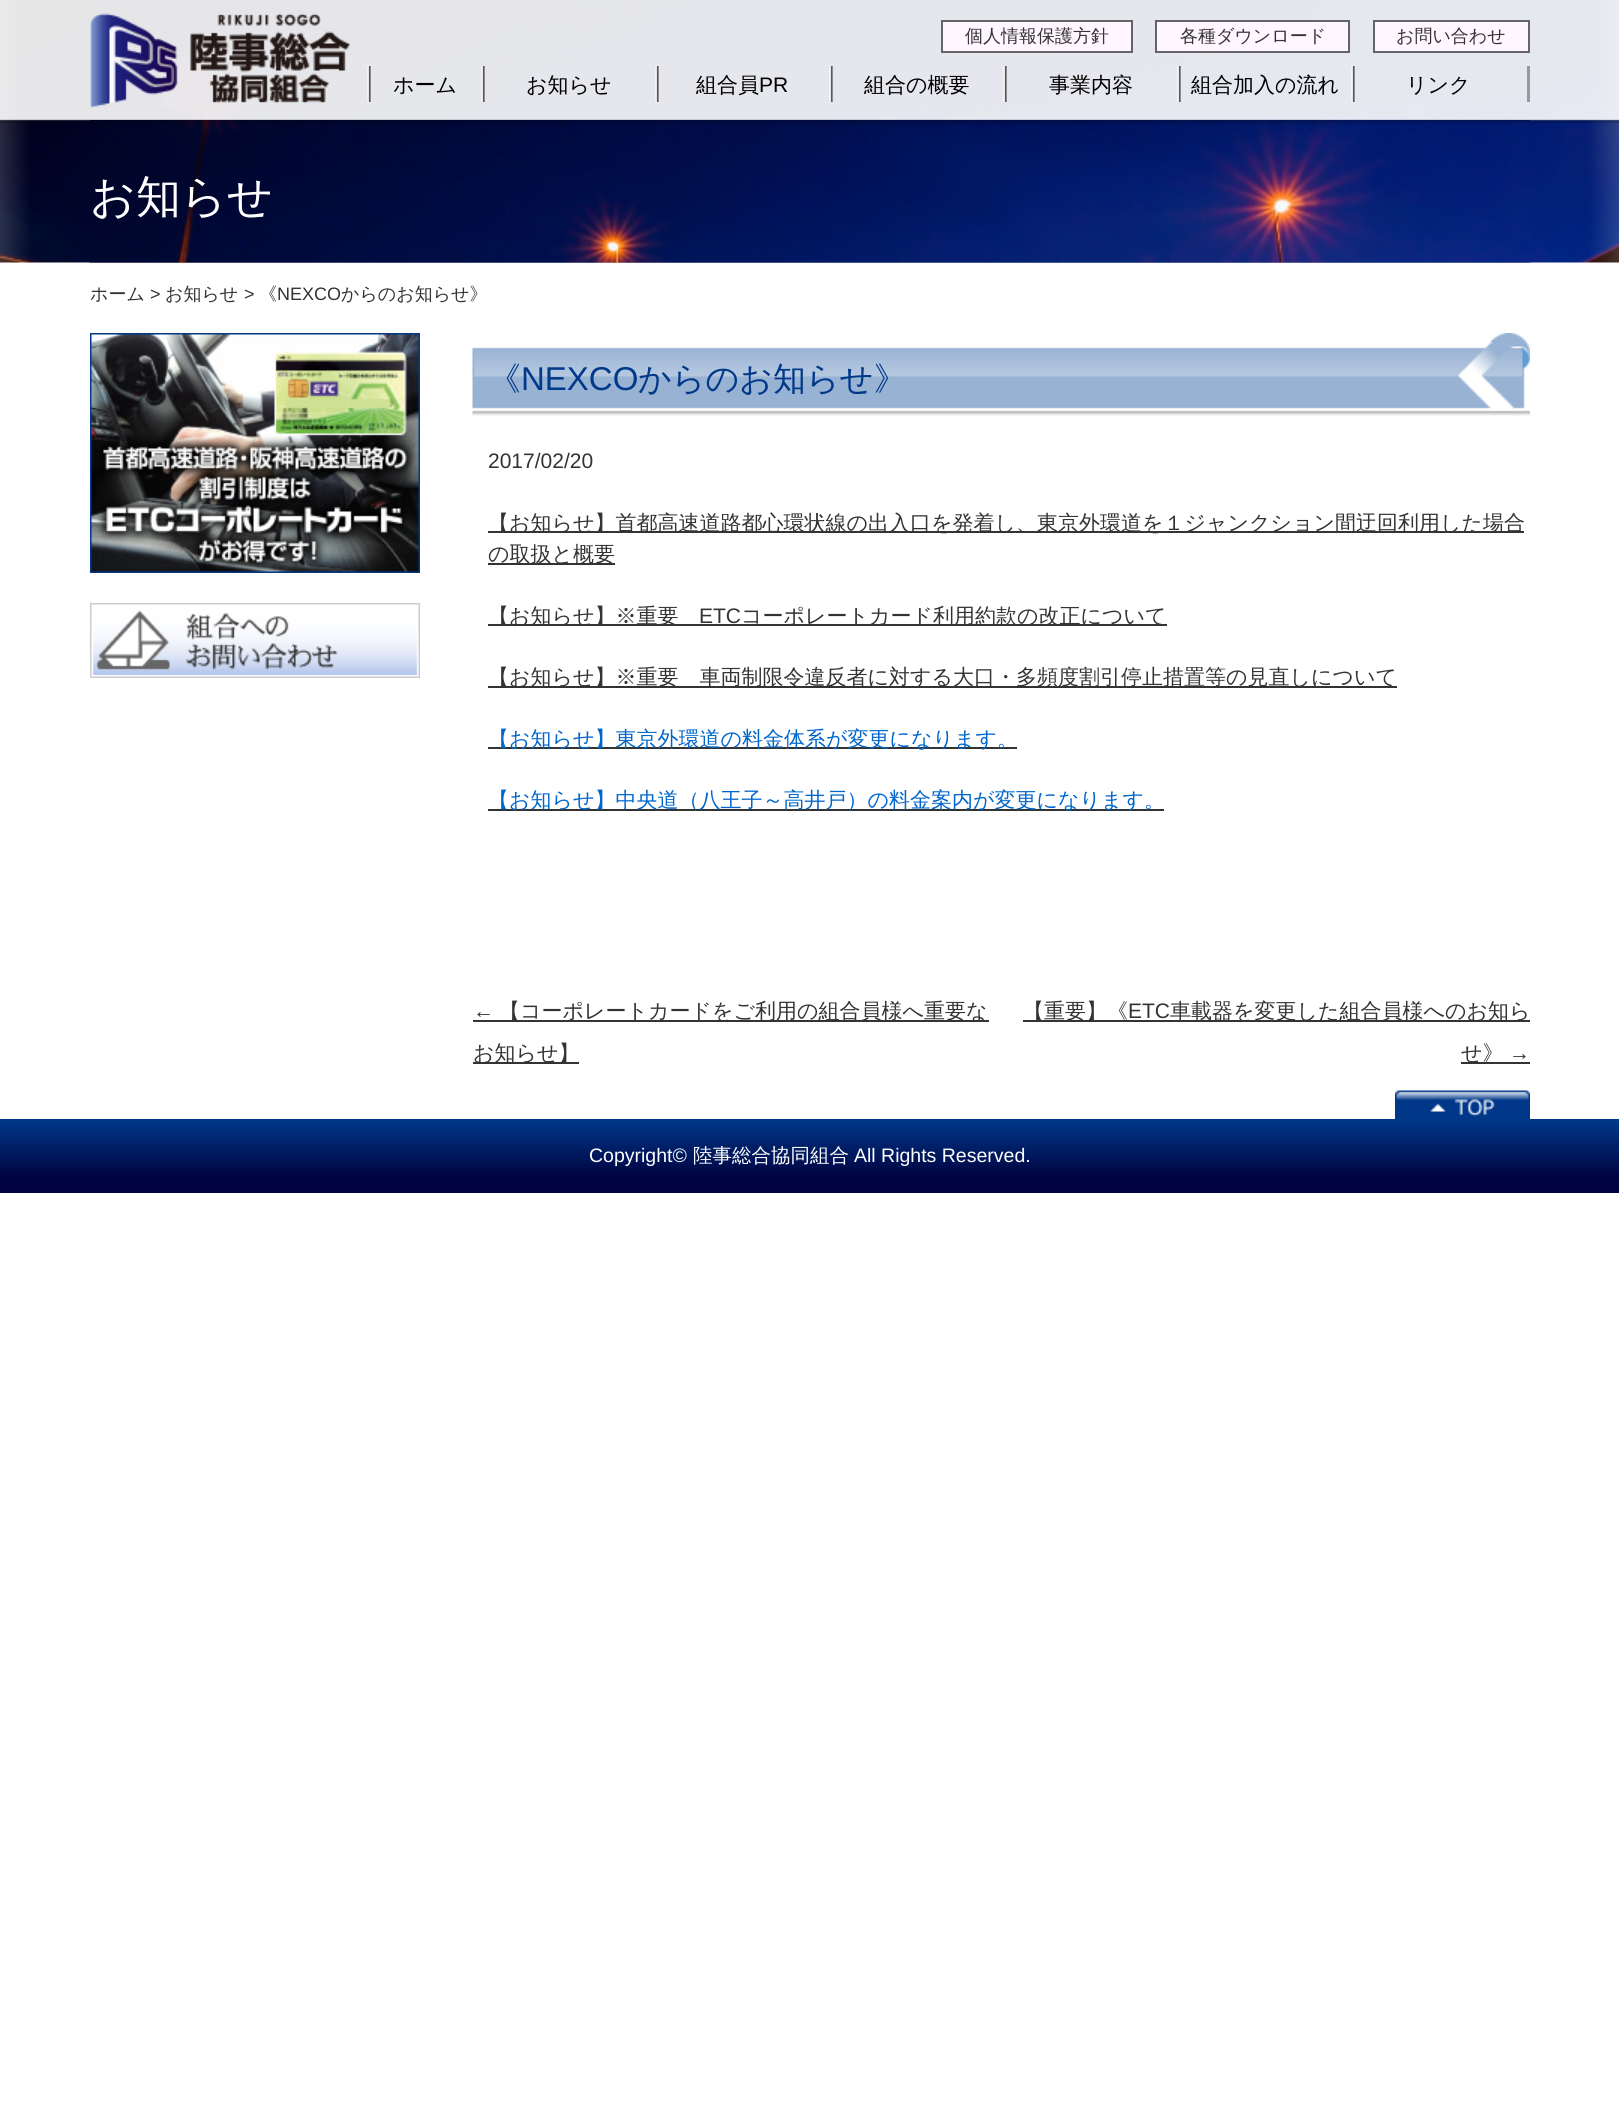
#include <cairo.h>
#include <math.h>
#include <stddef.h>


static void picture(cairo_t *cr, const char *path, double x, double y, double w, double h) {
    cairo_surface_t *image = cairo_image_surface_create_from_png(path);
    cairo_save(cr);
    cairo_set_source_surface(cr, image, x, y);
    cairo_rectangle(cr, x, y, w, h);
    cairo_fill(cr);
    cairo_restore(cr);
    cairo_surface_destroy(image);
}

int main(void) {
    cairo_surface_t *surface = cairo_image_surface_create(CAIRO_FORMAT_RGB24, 1619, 2114);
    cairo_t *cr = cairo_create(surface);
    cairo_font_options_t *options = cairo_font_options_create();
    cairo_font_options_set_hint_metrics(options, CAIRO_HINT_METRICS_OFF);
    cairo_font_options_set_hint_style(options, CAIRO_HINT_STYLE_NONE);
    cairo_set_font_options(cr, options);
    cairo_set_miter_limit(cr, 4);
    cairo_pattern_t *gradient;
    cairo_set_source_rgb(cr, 1, 1, 1);
    cairo_paint(cr);
    picture(cr, "img1.png", 0, 0, 1619, 263);
    picture(cr, "img2.png", 0, 120, 1619, 4);
    picture(cr, "img3.png", 90, 13, 260, 95);
    cairo_set_source_rgb(cr, 1, 0.961, 1);
    cairo_rectangle(cr, 942, 21, 190, 31);
    cairo_fill_preserve(cr);
    cairo_set_source_rgb(cr, 0.396, 0.396, 0.396);
    cairo_stroke(cr);
    cairo_select_font_face(cr, "WenQuanYi Zen Hei Medium", CAIRO_FONT_SLANT_NORMAL, CAIRO_FONT_WEIGHT_NORMAL);
    cairo_set_font_size(cr, 18);
    cairo_set_source_rgb(cr, 0.2, 0.2, 0.2);
    cairo_move_to(cr, 965, 42);
    cairo_show_text(cr, "個人情報保護方針");
    cairo_set_source_rgb(cr, 1, 0.961, 1);
    cairo_rectangle(cr, 1156, 21, 193, 31);
    cairo_fill_preserve(cr);
    cairo_set_source_rgb(cr, 0.396, 0.396, 0.396);
    cairo_stroke(cr);
    cairo_set_source_rgb(cr, 0.2, 0.2, 0.2);
    cairo_move_to(cr, 1180, 42);
    cairo_show_text(cr, "各種ダウンロード");
    cairo_set_source_rgb(cr, 1, 0.961, 1);
    cairo_rectangle(cr, 1374, 21, 155, 31);
    cairo_fill_preserve(cr);
    cairo_set_source_rgb(cr, 0.396, 0.396, 0.396);
    cairo_stroke(cr);
    cairo_set_source_rgb(cr, 0.2, 0.2, 0.2);
    cairo_move_to(cr, 1396, 42);
    cairo_show_text(cr, "お問い合わせ");
    cairo_set_source_rgb(cr, 0.596, 0.596, 0.596);
    cairo_rectangle(cr, 1527, 66, 3, 36);
    cairo_fill(cr);
    picture(cr, "img4.png", 367, 66, 4, 36);
    cairo_set_font_size(cr, 21);
    cairo_set_source_rgb(cr, 0, 0, 0);
    cairo_move_to(cr, 393, 92);
    cairo_show_text(cr, "ホーム");
    picture(cr, "img5.png", 481, 66, 4, 36);
    cairo_move_to(cr, 526, 92);
    cairo_show_text(cr, "お知らせ");
    picture(cr, "img6.png", 655, 66, 4, 36);
    cairo_move_to(cr, 696, 92);
    cairo_show_text(cr, "組合員");
    cairo_select_font_face(cr, "Liberation Sans", CAIRO_FONT_SLANT_NORMAL, CAIRO_FONT_WEIGHT_NORMAL);
    cairo_move_to(cr, 759, 92);
    cairo_show_text(cr, "PR");
    picture(cr, "img7.png", 829, 66, 4, 36);
    cairo_select_font_face(cr, "WenQuanYi Zen Hei Medium", CAIRO_FONT_SLANT_NORMAL, CAIRO_FONT_WEIGHT_NORMAL);
    cairo_move_to(cr, 864, 92);
    cairo_show_text(cr, "組合の概要");
    picture(cr, "img8.png", 1003, 66, 4, 36);
    cairo_move_to(cr, 1049, 92);
    cairo_show_text(cr, "事業内容");
    picture(cr, "img9.png", 1177, 66, 4, 36);
    cairo_move_to(cr, 1191, 92);
    cairo_show_text(cr, "組合加入の流れ");
    picture(cr, "img10.png", 1351, 66, 4, 36);
    cairo_move_to(cr, 1406, 92);
    cairo_show_text(cr, "リンク");
    picture(cr, "img11.png", 90, 120, 1440, 143);
    cairo_set_font_size(cr, 45);
    cairo_set_source_rgb(cr, 1, 1, 1);
    cairo_move_to(cr, 90, 212);
    cairo_show_text(cr, "お知らせ");
    cairo_set_font_size(cr, 18);
    cairo_set_source_rgb(cr, 0.2, 0.2, 0.2);
    cairo_move_to(cr, 90, 300);
    cairo_show_text(cr, "ホーム");
    cairo_select_font_face(cr, "Liberation Sans", CAIRO_FONT_SLANT_NORMAL, CAIRO_FONT_WEIGHT_NORMAL);
    cairo_move_to(cr, 150, 300);
    cairo_show_text(cr, ">");
    cairo_select_font_face(cr, "WenQuanYi Zen Hei Medium", CAIRO_FONT_SLANT_NORMAL, CAIRO_FONT_WEIGHT_NORMAL);
    cairo_move_to(cr, 165, 300);
    cairo_show_text(cr, "お知らせ");
    cairo_select_font_face(cr, "Liberation Sans", CAIRO_FONT_SLANT_NORMAL, CAIRO_FONT_WEIGHT_NORMAL);
    cairo_move_to(cr, 244, 300);
    cairo_show_text(cr, ">");
    cairo_select_font_face(cr, "WenQuanYi Zen Hei Medium", CAIRO_FONT_SLANT_NORMAL, CAIRO_FONT_WEIGHT_NORMAL);
    cairo_move_to(cr, 259, 300);
    cairo_show_text(cr, "《");
    cairo_select_font_face(cr, "Liberation Sans", CAIRO_FONT_SLANT_NORMAL, CAIRO_FONT_WEIGHT_NORMAL);
    cairo_move_to(cr, 277, 300);
    cairo_show_text(cr, "NEXCO");
    cairo_select_font_face(cr, "WenQuanYi Zen Hei Medium", CAIRO_FONT_SLANT_NORMAL, CAIRO_FONT_WEIGHT_NORMAL);
    cairo_move_to(cr, 341, 300);
    cairo_show_text(cr, "からのお知らせ》");
    picture(cr, "img12.png", 90, 333, 330, 240);
    picture(cr, "img13.png", 90, 603, 330, 75);
    picture(cr, "img14.png", 472, 333, 1058, 83);
    cairo_set_font_size(cr, 33);
    cairo_set_source_rgb(cr, 0, 0.22, 0.541);
    cairo_move_to(cr, 488, 390);
    cairo_show_text(cr, "《");
    cairo_select_font_face(cr, "Liberation Sans", CAIRO_FONT_SLANT_NORMAL, CAIRO_FONT_WEIGHT_NORMAL);
    cairo_move_to(cr, 521, 390);
    cairo_show_text(cr, "NEXCO");
    cairo_select_font_face(cr, "WenQuanYi Zen Hei Medium", CAIRO_FONT_SLANT_NORMAL, CAIRO_FONT_WEIGHT_NORMAL);
    cairo_move_to(cr, 638, 390);
    cairo_show_text(cr, "からのお知らせ》");
    cairo_select_font_face(cr, "Liberation Sans", CAIRO_FONT_SLANT_NORMAL, CAIRO_FONT_WEIGHT_NORMAL);
    cairo_set_font_size(cr, 21);
    cairo_set_source_rgb(cr, 0.2, 0.2, 0.2);
    cairo_move_to(cr, 488, 468);
    cairo_show_text(cr, "2017/02/20");
    cairo_rectangle(cr, 488, 531, 1036, 2);
    cairo_fill(cr);
    cairo_select_font_face(cr, "WenQuanYi Zen Hei Medium", CAIRO_FONT_SLANT_NORMAL, CAIRO_FONT_WEIGHT_NORMAL);
    cairo_move_to(cr, 488, 530);
    cairo_show_text(cr, "【お知らせ】首都高速道路都心環状線の出入口を発着し、東京外環道を１ジャンクション間迂回利用した場合");
    cairo_rectangle(cr, 488, 563, 127, 2);
    cairo_fill(cr);
    cairo_move_to(cr, 488, 561);
    cairo_show_text(cr, "の取扱と概要");
    cairo_rectangle(cr, 488, 624, 679, 2);
    cairo_fill(cr);
    cairo_move_to(cr, 488, 623);
    cairo_show_text(cr, "【お知らせ】※重要");
    cairo_select_font_face(cr, "Liberation Sans", CAIRO_FONT_SLANT_NORMAL, CAIRO_FONT_WEIGHT_NORMAL);
    cairo_move_to(cr, 699, 623);
    cairo_show_text(cr, "ETC");
    cairo_select_font_face(cr, "WenQuanYi Zen Hei Medium", CAIRO_FONT_SLANT_NORMAL, CAIRO_FONT_WEIGHT_NORMAL);
    cairo_move_to(cr, 741, 623);
    cairo_show_text(cr, "コーポレートカード利用約款の改正について");
    cairo_rectangle(cr, 488, 686, 909, 2);
    cairo_fill(cr);
    cairo_move_to(cr, 488, 684);
    cairo_show_text(cr, "【お知らせ】※重要　車両制限令違反者に対する大口・多頻度割引停止措置等の見直しについて");
    cairo_rectangle(cr, 488, 747, 529, 2);
    cairo_fill(cr);
    cairo_set_source_rgb(cr, 0, 0.4, 0.8);
    cairo_move_to(cr, 488, 746);
    cairo_show_text(cr, "【お知らせ】東京外環道の料金体系が変更になります。");
    cairo_set_source_rgb(cr, 0.2, 0.2, 0.2);
    cairo_rectangle(cr, 488, 809, 676, 2);
    cairo_fill(cr);
    cairo_set_source_rgb(cr, 0, 0.4, 0.8);
    cairo_move_to(cr, 488, 807);
    cairo_show_text(cr, "【お知らせ】中央道（八王子～高井戸）の料金案内が変更になります。");
    cairo_select_font_face(cr, "Liberation Sans", CAIRO_FONT_SLANT_NORMAL, CAIRO_FONT_WEIGHT_NORMAL);
    cairo_set_source_rgb(cr, 0.2, 0.2, 0.2);
    cairo_move_to(cr, 473, 1018);
    cairo_show_text(cr, "←");
    cairo_rectangle(cr, 473, 1020, 516, 2);
    cairo_fill(cr);
    cairo_select_font_face(cr, "WenQuanYi Zen Hei Medium", CAIRO_FONT_SLANT_NORMAL, CAIRO_FONT_WEIGHT_NORMAL);
    cairo_move_to(cr, 499, 1018);
    cairo_show_text(cr, "【コーポレートカードをご利用の組合員様へ重要な");
    cairo_rectangle(cr, 473, 1062, 106, 2);
    cairo_fill(cr);
    cairo_move_to(cr, 473, 1060);
    cairo_show_text(cr, "お知らせ】");
    cairo_rectangle(cr, 1023, 1020, 507, 2);
    cairo_fill(cr);
    cairo_move_to(cr, 1023, 1018);
    cairo_show_text(cr, "【重要】《");
    cairo_select_font_face(cr, "Liberation Sans", CAIRO_FONT_SLANT_NORMAL, CAIRO_FONT_WEIGHT_NORMAL);
    cairo_move_to(cr, 1128, 1018);
    cairo_show_text(cr, "ETC");
    cairo_select_font_face(cr, "WenQuanYi Zen Hei Medium", CAIRO_FONT_SLANT_NORMAL, CAIRO_FONT_WEIGHT_NORMAL);
    cairo_move_to(cr, 1170, 1018);
    cairo_show_text(cr, "車載器を変更した組合員様へのお知ら");
    cairo_rectangle(cr, 1461, 1062, 69, 2);
    cairo_fill(cr);
    cairo_move_to(cr, 1461, 1060);
    cairo_show_text(cr, "せ》");
    cairo_select_font_face(cr, "Liberation Sans", CAIRO_FONT_SLANT_NORMAL, CAIRO_FONT_WEIGHT_NORMAL);
    cairo_move_to(cr, 1509, 1060);
    cairo_show_text(cr, "→");
    gradient = cairo_pattern_create_linear(810, 1119, 810, 1193);
    cairo_pattern_add_color_stop_rgba(gradient, 0, 0, 0.22, 0.541, 1);
    cairo_pattern_add_color_stop_rgba(gradient, 0.8, 0, 0.012, 0.251, 1);
    cairo_pattern_add_color_stop_rgba(gradient, 1, 0, 0.012, 0.251, 1);
    cairo_set_source(cr, gradient);
    cairo_pattern_destroy(gradient);
    cairo_rectangle(cr, 0, 1119, 1619, 74);
    cairo_fill(cr);
    picture(cr, "img15.png", 1395, 1090, 135, 29);
    cairo_set_font_size(cr, 19.5);
    cairo_set_source_rgb(cr, 1, 1, 1);
    cairo_move_to(cr, 589, 1162);
    cairo_show_text(cr, "Copyright©");
    cairo_select_font_face(cr, "WenQuanYi Zen Hei Medium", CAIRO_FONT_SLANT_NORMAL, CAIRO_FONT_WEIGHT_NORMAL);
    cairo_move_to(cr, 693, 1162);
    cairo_show_text(cr, "陸事総合協同組合");
    cairo_select_font_face(cr, "Liberation Sans", CAIRO_FONT_SLANT_NORMAL, CAIRO_FONT_WEIGHT_NORMAL);
    cairo_move_to(cr, 854, 1162);
    cairo_show_text(cr, "All Rights Reserved.");
    cairo_surface_write_to_png(surface, "page.png");
    cairo_font_options_destroy(options);
    cairo_destroy(cr);
    cairo_surface_destroy(surface);
    return 0;
}
